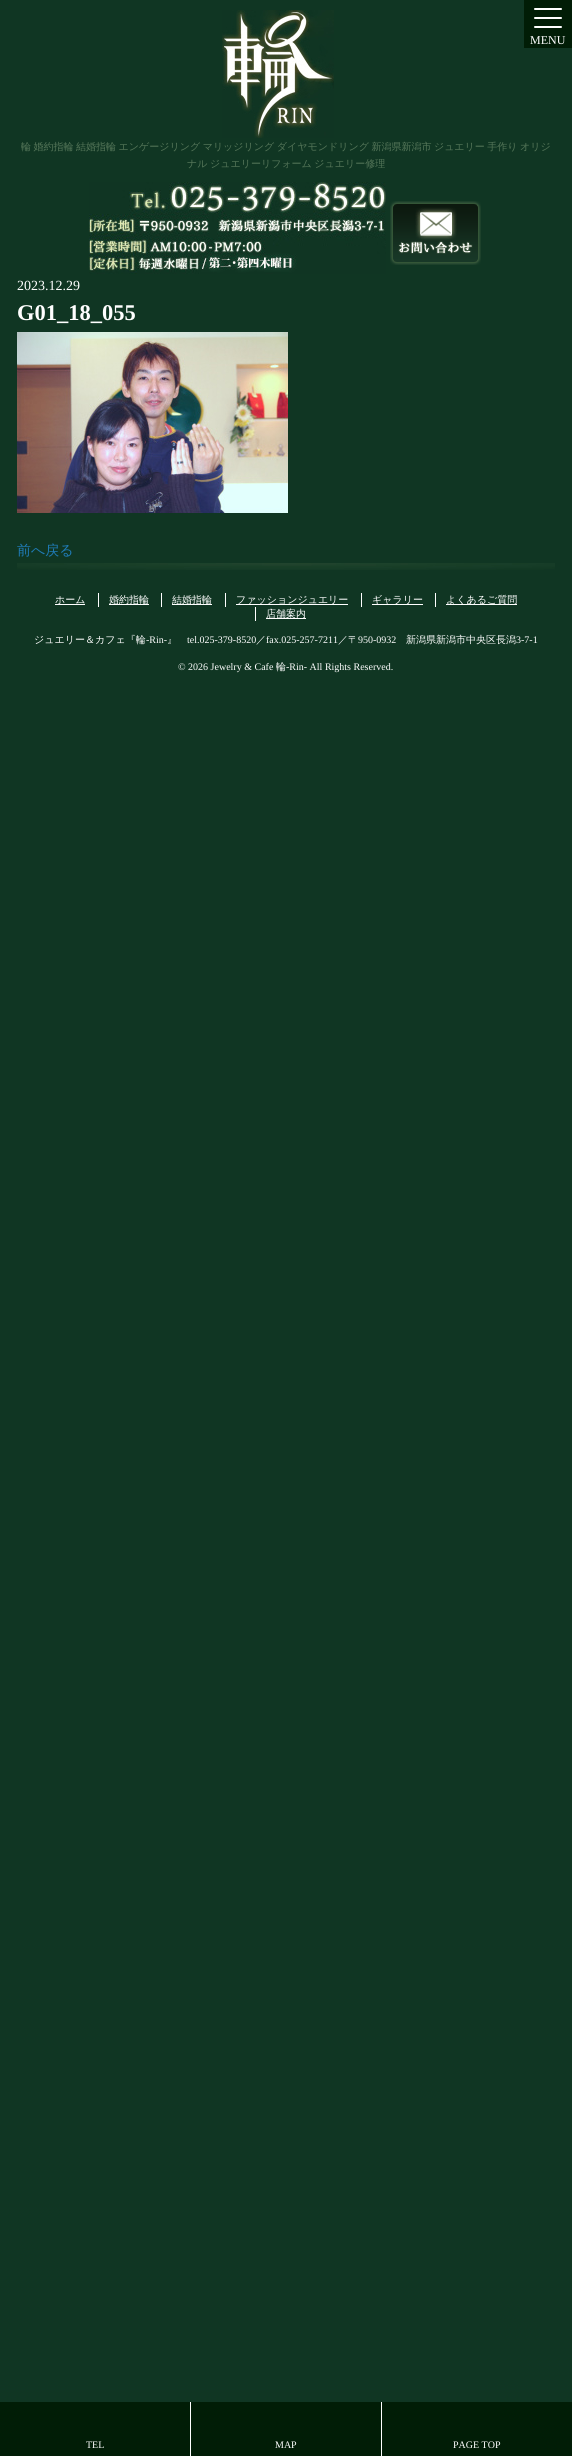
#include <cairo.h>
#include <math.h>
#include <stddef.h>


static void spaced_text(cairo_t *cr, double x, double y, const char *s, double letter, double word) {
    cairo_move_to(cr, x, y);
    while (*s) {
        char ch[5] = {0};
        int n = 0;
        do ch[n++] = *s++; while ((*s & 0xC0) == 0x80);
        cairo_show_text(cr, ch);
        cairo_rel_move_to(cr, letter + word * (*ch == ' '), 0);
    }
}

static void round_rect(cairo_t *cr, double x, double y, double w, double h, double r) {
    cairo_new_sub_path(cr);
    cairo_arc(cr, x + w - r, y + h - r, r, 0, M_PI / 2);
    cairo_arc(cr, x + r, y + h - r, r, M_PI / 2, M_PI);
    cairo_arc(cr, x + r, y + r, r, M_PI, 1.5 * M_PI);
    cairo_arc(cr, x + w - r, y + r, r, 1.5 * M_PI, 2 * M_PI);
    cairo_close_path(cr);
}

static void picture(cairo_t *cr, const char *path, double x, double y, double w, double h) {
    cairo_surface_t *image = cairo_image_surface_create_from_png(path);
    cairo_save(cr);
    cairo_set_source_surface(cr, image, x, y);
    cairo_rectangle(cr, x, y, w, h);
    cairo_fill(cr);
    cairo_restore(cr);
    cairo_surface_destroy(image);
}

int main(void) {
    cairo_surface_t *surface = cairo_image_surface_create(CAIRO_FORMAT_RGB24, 572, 2456);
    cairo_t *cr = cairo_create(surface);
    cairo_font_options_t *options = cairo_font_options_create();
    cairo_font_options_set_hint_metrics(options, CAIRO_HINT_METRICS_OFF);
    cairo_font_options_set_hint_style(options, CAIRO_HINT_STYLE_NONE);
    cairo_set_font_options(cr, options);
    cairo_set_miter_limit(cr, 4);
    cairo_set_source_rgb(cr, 0.063, 0.212, 0.137);
    cairo_paint(cr);
    picture(cr, "img1.png", 222, 10, 112, 128);
    cairo_set_source_rgb(cr, 0.004, 0.114, 0.027);
    cairo_rectangle(cr, 524, 0, 48, 48);
    cairo_fill(cr);
    cairo_set_source_rgb(cr, 1, 1, 1);
    round_rect(cr, 534, 8, 28, 2, 1);
    cairo_fill(cr);
    round_rect(cr, 534, 17, 28, 2, 1);
    cairo_fill(cr);
    round_rect(cr, 534, 26, 28, 2, 1);
    cairo_fill(cr);
    cairo_select_font_face(cr, "Liberation Serif", CAIRO_FONT_SLANT_NORMAL, CAIRO_FONT_WEIGHT_NORMAL);
    cairo_set_font_size(cr, 12);
    cairo_move_to(cr, 530, 44);
    cairo_show_text(cr, "MENU");
    cairo_select_font_face(cr, "WenQuanYi Zen Hei Medium", CAIRO_FONT_SLANT_NORMAL, CAIRO_FONT_WEIGHT_NORMAL);
    cairo_set_font_size(cr, 10);
    cairo_set_source_rgb(cr, 0.333, 0.463, 0.349);
    spaced_text(cr, 21, 150, "輪 婚約指輪 結婚指輪 エンゲージリング マリッジリング ダイヤモンドリング 新潟県新潟市 ジュエリー 手作り オリジ", 0, -0.5);
    spaced_text(cr, 187, 167, "ナル ジュエリーリフォーム ジュエリー修理", 0, -0.5);
    picture(cr, "img2.png", 89, 182, 297, 92);
    picture(cr, "img3.png", 390, 201, 91, 64);
    cairo_select_font_face(cr, "Liberation Serif", CAIRO_FONT_SLANT_NORMAL, CAIRO_FONT_WEIGHT_NORMAL);
    cairo_set_font_size(cr, 14);
    cairo_set_source_rgb(cr, 1, 1, 1);
    cairo_move_to(cr, 17, 290);
    cairo_show_text(cr, "2023.12.29");
    cairo_select_font_face(cr, "Liberation Serif", CAIRO_FONT_SLANT_NORMAL, CAIRO_FONT_WEIGHT_BOLD);
    cairo_set_font_size(cr, 22.5);
    cairo_move_to(cr, 17, 320);
    cairo_show_text(cr, "G01_18_055");
    picture(cr, "img4.png", 17, 332, 271, 181);
    cairo_select_font_face(cr, "WenQuanYi Zen Hei Medium", CAIRO_FONT_SLANT_NORMAL, CAIRO_FONT_WEIGHT_NORMAL);
    cairo_set_font_size(cr, 14);
    cairo_set_source_rgb(cr, 0.122, 0.482, 0.714);
    cairo_move_to(cr, 17, 555);
    cairo_show_text(cr, "前へ戻る");
    picture(cr, "img5.png", 17, 563, 538, 7);
    cairo_set_font_size(cr, 10);
    cairo_set_source_rgb(cr, 1, 1, 1);
    cairo_move_to(cr, 55, 603);
    cairo_show_text(cr, "ホーム");
    cairo_rectangle(cr, 55, 604, 30, 1);
    cairo_fill(cr);
    cairo_rectangle(cr, 98, 593, 1, 14);
    cairo_fill(cr);
    cairo_rectangle(cr, 109, 604, 40, 1);
    cairo_fill(cr);
    cairo_move_to(cr, 109, 603);
    cairo_show_text(cr, "婚約指輪");
    cairo_rectangle(cr, 161, 593, 1, 14);
    cairo_fill(cr);
    cairo_rectangle(cr, 172, 604, 40, 1);
    cairo_fill(cr);
    cairo_move_to(cr, 172, 603);
    cairo_show_text(cr, "結婚指輪");
    cairo_rectangle(cr, 225, 593, 1, 14);
    cairo_fill(cr);
    cairo_rectangle(cr, 236, 604, 112, 1);
    cairo_fill(cr);
    cairo_move_to(cr, 236, 603);
    cairo_show_text(cr, "ファッションジュエリー");
    cairo_rectangle(cr, 361, 593, 1, 14);
    cairo_fill(cr);
    cairo_rectangle(cr, 372, 604, 51, 1);
    cairo_fill(cr);
    cairo_move_to(cr, 372, 603);
    cairo_show_text(cr, "ギャラリー");
    cairo_rectangle(cr, 435, 593, 1, 14);
    cairo_fill(cr);
    cairo_rectangle(cr, 446, 604, 71, 1);
    cairo_fill(cr);
    cairo_move_to(cr, 446, 603);
    cairo_show_text(cr, "よくあるご質問");
    cairo_rectangle(cr, 255, 607, 1, 14);
    cairo_fill(cr);
    cairo_rectangle(cr, 266, 618, 40, 1);
    cairo_fill(cr);
    cairo_move_to(cr, 266, 617);
    cairo_show_text(cr, "店舗案内");
    cairo_move_to(cr, 34, 643);
    cairo_show_text(cr, "ジュエリー＆カフェ『輪");
    cairo_select_font_face(cr, "Liberation Serif", CAIRO_FONT_SLANT_NORMAL, CAIRO_FONT_WEIGHT_NORMAL);
    cairo_move_to(cr, 146, 643);
    cairo_show_text(cr, "-Rin-");
    cairo_select_font_face(cr, "WenQuanYi Zen Hei Medium", CAIRO_FONT_SLANT_NORMAL, CAIRO_FONT_WEIGHT_NORMAL);
    cairo_move_to(cr, 167, 643);
    cairo_show_text(cr, "』");
    cairo_select_font_face(cr, "Liberation Serif", CAIRO_FONT_SLANT_NORMAL, CAIRO_FONT_WEIGHT_NORMAL);
    cairo_move_to(cr, 187, 643);
    cairo_show_text(cr, "tel.025-379-8520");
    cairo_select_font_face(cr, "WenQuanYi Zen Hei Medium", CAIRO_FONT_SLANT_NORMAL, CAIRO_FONT_WEIGHT_NORMAL);
    cairo_move_to(cr, 256, 643);
    cairo_show_text(cr, "／");
    cairo_select_font_face(cr, "Liberation Serif", CAIRO_FONT_SLANT_NORMAL, CAIRO_FONT_WEIGHT_NORMAL);
    cairo_move_to(cr, 266, 643);
    cairo_show_text(cr, "fax.025-257-7211");
    cairo_select_font_face(cr, "WenQuanYi Zen Hei Medium", CAIRO_FONT_SLANT_NORMAL, CAIRO_FONT_WEIGHT_NORMAL);
    cairo_move_to(cr, 338, 643);
    cairo_show_text(cr, "／〒");
    cairo_select_font_face(cr, "Liberation Serif", CAIRO_FONT_SLANT_NORMAL, CAIRO_FONT_WEIGHT_NORMAL);
    cairo_move_to(cr, 358, 643);
    cairo_show_text(cr, "950-0932");
    cairo_select_font_face(cr, "WenQuanYi Zen Hei Medium", CAIRO_FONT_SLANT_NORMAL, CAIRO_FONT_WEIGHT_NORMAL);
    cairo_move_to(cr, 406, 643);
    cairo_show_text(cr, "新潟県新潟市中央区長潟");
    cairo_select_font_face(cr, "Liberation Serif", CAIRO_FONT_SLANT_NORMAL, CAIRO_FONT_WEIGHT_NORMAL);
    cairo_move_to(cr, 516, 643);
    cairo_show_text(cr, "3-7-1");
    cairo_move_to(cr, 178, 670);
    cairo_show_text(cr, "© 2026 Jewelry & Cafe");
    cairo_select_font_face(cr, "WenQuanYi Zen Hei Medium", CAIRO_FONT_SLANT_NORMAL, CAIRO_FONT_WEIGHT_NORMAL);
    cairo_move_to(cr, 276, 670);
    cairo_show_text(cr, "輪");
    cairo_select_font_face(cr, "Liberation Serif", CAIRO_FONT_SLANT_NORMAL, CAIRO_FONT_WEIGHT_NORMAL);
    cairo_move_to(cr, 286, 670);
    cairo_show_text(cr, "-Rin- All Rights Reserved.");
    cairo_set_source_rgb(cr, 0.004, 0.114, 0.027);
    cairo_rectangle(cr, 0, 2402, 190, 54);
    cairo_fill(cr);
    cairo_set_source_rgb(cr, 1, 1, 1);
    cairo_move_to(cr, 86, 2448);
    cairo_show_text(cr, "TEL");
    cairo_set_source_rgb(cr, 0.004, 0.114, 0.027);
    cairo_rectangle(cr, 191, 2402, 190, 54);
    cairo_fill(cr);
    cairo_set_source_rgb(cr, 1, 1, 1);
    cairo_rectangle(cr, 190, 2402, 1, 54);
    cairo_fill(cr);
    cairo_move_to(cr, 275, 2448);
    cairo_show_text(cr, "MAP");
    cairo_set_source_rgb(cr, 0.004, 0.114, 0.027);
    cairo_rectangle(cr, 382, 2402, 190, 54);
    cairo_fill(cr);
    cairo_set_source_rgb(cr, 1, 1, 1);
    cairo_rectangle(cr, 381, 2402, 1, 54);
    cairo_fill(cr);
    cairo_move_to(cr, 453, 2448);
    cairo_show_text(cr, "PAGE TOP");
    cairo_surface_write_to_png(surface, "page.png");
    cairo_font_options_destroy(options);
    cairo_destroy(cr);
    cairo_surface_destroy(surface);
    return 0;
}
